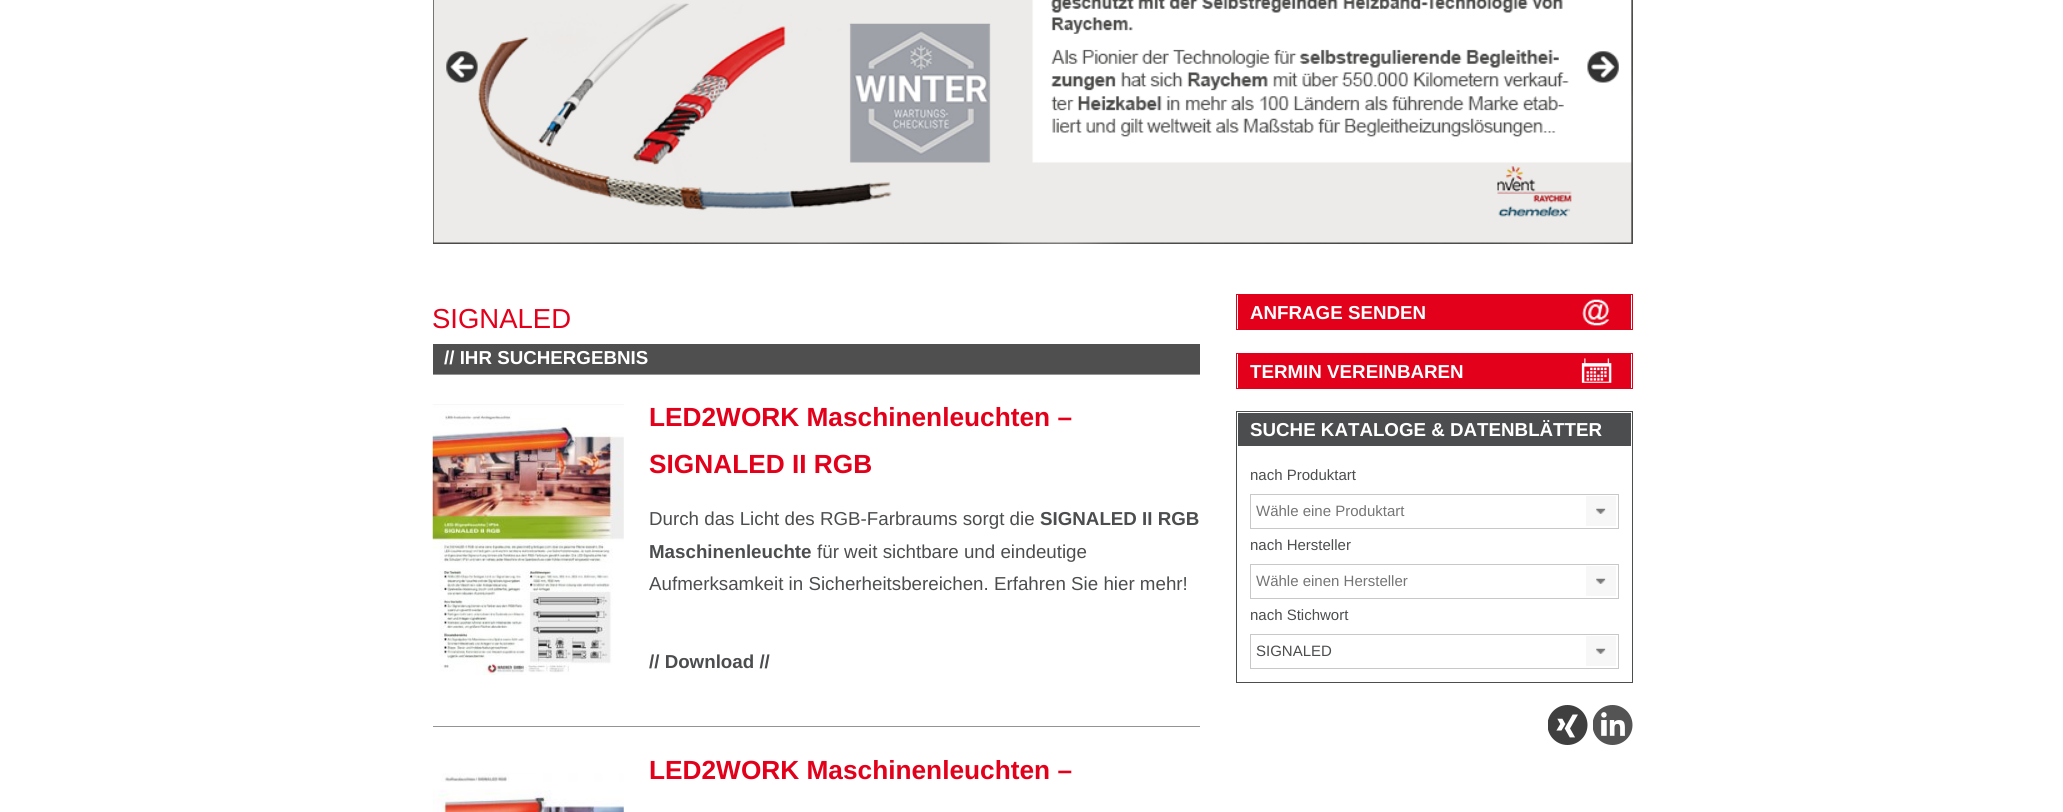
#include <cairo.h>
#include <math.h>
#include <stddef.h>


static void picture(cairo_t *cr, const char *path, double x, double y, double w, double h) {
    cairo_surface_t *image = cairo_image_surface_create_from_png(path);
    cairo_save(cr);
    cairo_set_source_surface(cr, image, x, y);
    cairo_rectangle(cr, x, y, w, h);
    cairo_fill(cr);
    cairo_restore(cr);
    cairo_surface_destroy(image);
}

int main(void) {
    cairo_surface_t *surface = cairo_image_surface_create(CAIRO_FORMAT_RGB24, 2063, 812);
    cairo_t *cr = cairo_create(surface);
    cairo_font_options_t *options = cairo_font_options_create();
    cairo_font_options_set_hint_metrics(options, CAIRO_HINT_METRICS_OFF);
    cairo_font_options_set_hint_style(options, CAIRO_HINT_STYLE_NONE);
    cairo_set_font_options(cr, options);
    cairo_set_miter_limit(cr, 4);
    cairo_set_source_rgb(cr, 1, 1, 1);
    cairo_paint(cr);
    picture(cr, "img1.png", 433, 0, 1200, 244);
    picture(cr, "img2.png", 446, 51, 32, 32);
    picture(cr, "img3.png", 1587, 51, 32, 32);
    cairo_select_font_face(cr, "Liberation Sans", CAIRO_FONT_SLANT_NORMAL, CAIRO_FONT_WEIGHT_NORMAL);
    cairo_set_font_size(cr, 27.5);
    cairo_set_source_rgb(cr, 0.886, 0, 0.102);
    cairo_move_to(cr, 432, 328);
    cairo_show_text(cr, "SIGNALED");
    cairo_set_source_rgb(cr, 0.31, 0.31, 0.31);
    cairo_rectangle(cr, 433, 344, 767, 30);
    cairo_fill(cr);
    cairo_select_font_face(cr, "Liberation Sans", CAIRO_FONT_SLANT_NORMAL, CAIRO_FONT_WEIGHT_BOLD);
    cairo_set_font_size(cr, 18.75);
    cairo_set_source_rgb(cr, 1, 1, 1);
    cairo_move_to(cr, 444, 364);
    cairo_show_text(cr, "// IHR SUCHERGEBNIS");
    cairo_set_source_rgb(cr, 0.58, 0.58, 0.58);
    cairo_rectangle(cr, 433, 374, 767, 1);
    cairo_fill(cr);
    picture(cr, "img4.png", 432, 404, 192, 271);
    cairo_set_font_size(cr, 26.25);
    cairo_set_source_rgb(cr, 0.886, 0, 0.102);
    cairo_move_to(cr, 649, 426);
    cairo_show_text(cr, "LED2WORK Maschinenleuchten –");
    cairo_move_to(cr, 649, 473);
    cairo_show_text(cr, "SIGNALED II RGB");
    cairo_select_font_face(cr, "Liberation Sans", CAIRO_FONT_SLANT_NORMAL, CAIRO_FONT_WEIGHT_NORMAL);
    cairo_set_font_size(cr, 18.75);
    cairo_set_source_rgb(cr, 0.298, 0.302, 0.31);
    cairo_move_to(cr, 649, 525);
    cairo_show_text(cr, "Durch das Licht des RGB-Farbraums sorgt die");
    cairo_select_font_face(cr, "Liberation Sans", CAIRO_FONT_SLANT_NORMAL, CAIRO_FONT_WEIGHT_BOLD);
    cairo_move_to(cr, 1040, 525);
    cairo_show_text(cr, "SIGNALED II RGB");
    cairo_move_to(cr, 649, 558);
    cairo_show_text(cr, "Maschinenleuchte");
    cairo_select_font_face(cr, "Liberation Sans", CAIRO_FONT_SLANT_NORMAL, CAIRO_FONT_WEIGHT_NORMAL);
    cairo_move_to(cr, 817, 558);
    cairo_show_text(cr, "für weit sichtbare und eindeutige");
    cairo_move_to(cr, 649, 590);
    cairo_show_text(cr, "Aufmerksamkeit in Sicherheitsbereichen. Erfahren Sie hier mehr!");
    cairo_select_font_face(cr, "Liberation Sans", CAIRO_FONT_SLANT_NORMAL, CAIRO_FONT_WEIGHT_BOLD);
    cairo_move_to(cr, 649, 668);
    cairo_show_text(cr, "// Download //");
    cairo_set_source_rgb(cr, 0.58, 0.58, 0.58);
    cairo_rectangle(cr, 433, 726, 767, 1);
    cairo_fill(cr);
    cairo_set_font_size(cr, 26.25);
    cairo_set_source_rgb(cr, 0.886, 0, 0.102);
    cairo_move_to(cr, 649, 779);
    cairo_show_text(cr, "LED2WORK Maschinenleuchten –");
    picture(cr, "img5.png", 433, 773, 191, 39);
    cairo_rectangle(cr, 1236.5, 294.5, 396, 35);
    cairo_set_line_width(cr, 1);
    cairo_stroke(cr);
    cairo_rectangle(cr, 1238, 295, 393, 34);
    cairo_fill(cr);
    cairo_set_font_size(cr, 18.75);
    cairo_set_source_rgb(cr, 1, 1, 1);
    cairo_move_to(cr, 1250, 319);
    cairo_show_text(cr, "ANFRAGE SENDEN");
    picture(cr, "img6.png", 1582, 299, 28, 27);
    cairo_rectangle(cr, 1236.5, 353.5, 396, 35);
    cairo_set_source_rgb(cr, 0.886, 0, 0.102);
    cairo_stroke(cr);
    cairo_rectangle(cr, 1238, 354, 393, 34);
    cairo_fill(cr);
    cairo_set_source_rgb(cr, 1, 1, 1);
    cairo_move_to(cr, 1250, 378);
    cairo_show_text(cr, "TERMIN VEREINBAREN");
    picture(cr, "img7.png", 1581, 358, 31, 25);
    cairo_rectangle(cr, 1236.5, 411.5, 396, 271);
    cairo_set_source_rgb(cr, 0.298, 0.302, 0.31);
    cairo_stroke(cr);
    cairo_rectangle(cr, 1238, 413, 393, 33);
    cairo_fill(cr);
    cairo_set_source_rgb(cr, 1, 1, 1);
    cairo_move_to(cr, 1250, 436);
    cairo_show_text(cr, "SUCHE KATALOGE & DATENBLÄTTER");
    cairo_select_font_face(cr, "Liberation Sans", CAIRO_FONT_SLANT_NORMAL, CAIRO_FONT_WEIGHT_NORMAL);
    cairo_set_font_size(cr, 15);
    cairo_set_source_rgb(cr, 0.298, 0.302, 0.31);
    cairo_move_to(cr, 1250, 480);
    cairo_show_text(cr, "nach Produktart");
    cairo_rectangle(cr, 1250.5, 494.5, 368, 34);
    cairo_set_source_rgb(cr, 0.784, 0.784, 0.784);
    cairo_stroke(cr);
    cairo_set_source_rgb(cr, 0.459, 0.459, 0.459);
    cairo_move_to(cr, 1256, 516);
    cairo_show_text(cr, "Wähle eine Produktart");
    cairo_set_source_rgb(cr, 0.965, 0.965, 0.965);
    cairo_rectangle(cr, 1586, 496, 30, 30);
    cairo_fill(cr);
    picture(cr, "img8.png", 1596, 508, 10, 6);
    cairo_set_source_rgb(cr, 0.298, 0.302, 0.31);
    cairo_move_to(cr, 1250, 550);
    cairo_show_text(cr, "nach Hersteller");
    cairo_rectangle(cr, 1250.5, 564.5, 368, 34);
    cairo_set_source_rgb(cr, 0.784, 0.784, 0.784);
    cairo_stroke(cr);
    cairo_set_source_rgb(cr, 0.459, 0.459, 0.459);
    cairo_move_to(cr, 1256, 586);
    cairo_show_text(cr, "Wähle einen Hersteller");
    cairo_set_source_rgb(cr, 0.965, 0.965, 0.965);
    cairo_rectangle(cr, 1586, 566, 30, 30);
    cairo_fill(cr);
    picture(cr, "img8.png", 1596, 578, 10, 6);
    cairo_set_source_rgb(cr, 0.298, 0.302, 0.31);
    cairo_move_to(cr, 1250, 620);
    cairo_show_text(cr, "nach Stichwort");
    cairo_rectangle(cr, 1250.5, 634.5, 368, 34);
    cairo_set_source_rgb(cr, 0.784, 0.784, 0.784);
    cairo_stroke(cr);
    cairo_set_source_rgb(cr, 0.298, 0.302, 0.31);
    cairo_move_to(cr, 1256, 656);
    cairo_show_text(cr, "SIGNALED");
    cairo_set_source_rgb(cr, 0.965, 0.965, 0.965);
    cairo_rectangle(cr, 1586, 636, 30, 30);
    cairo_fill(cr);
    picture(cr, "img8.png", 1596, 648, 10, 6);
    picture(cr, "img9.png", 1548, 705, 40, 40);
    picture(cr, "img10.png", 1593, 705, 40, 40);
    cairo_surface_write_to_png(surface, "page.png");
    cairo_font_options_destroy(options);
    cairo_destroy(cr);
    cairo_surface_destroy(surface);
    return 0;
}
